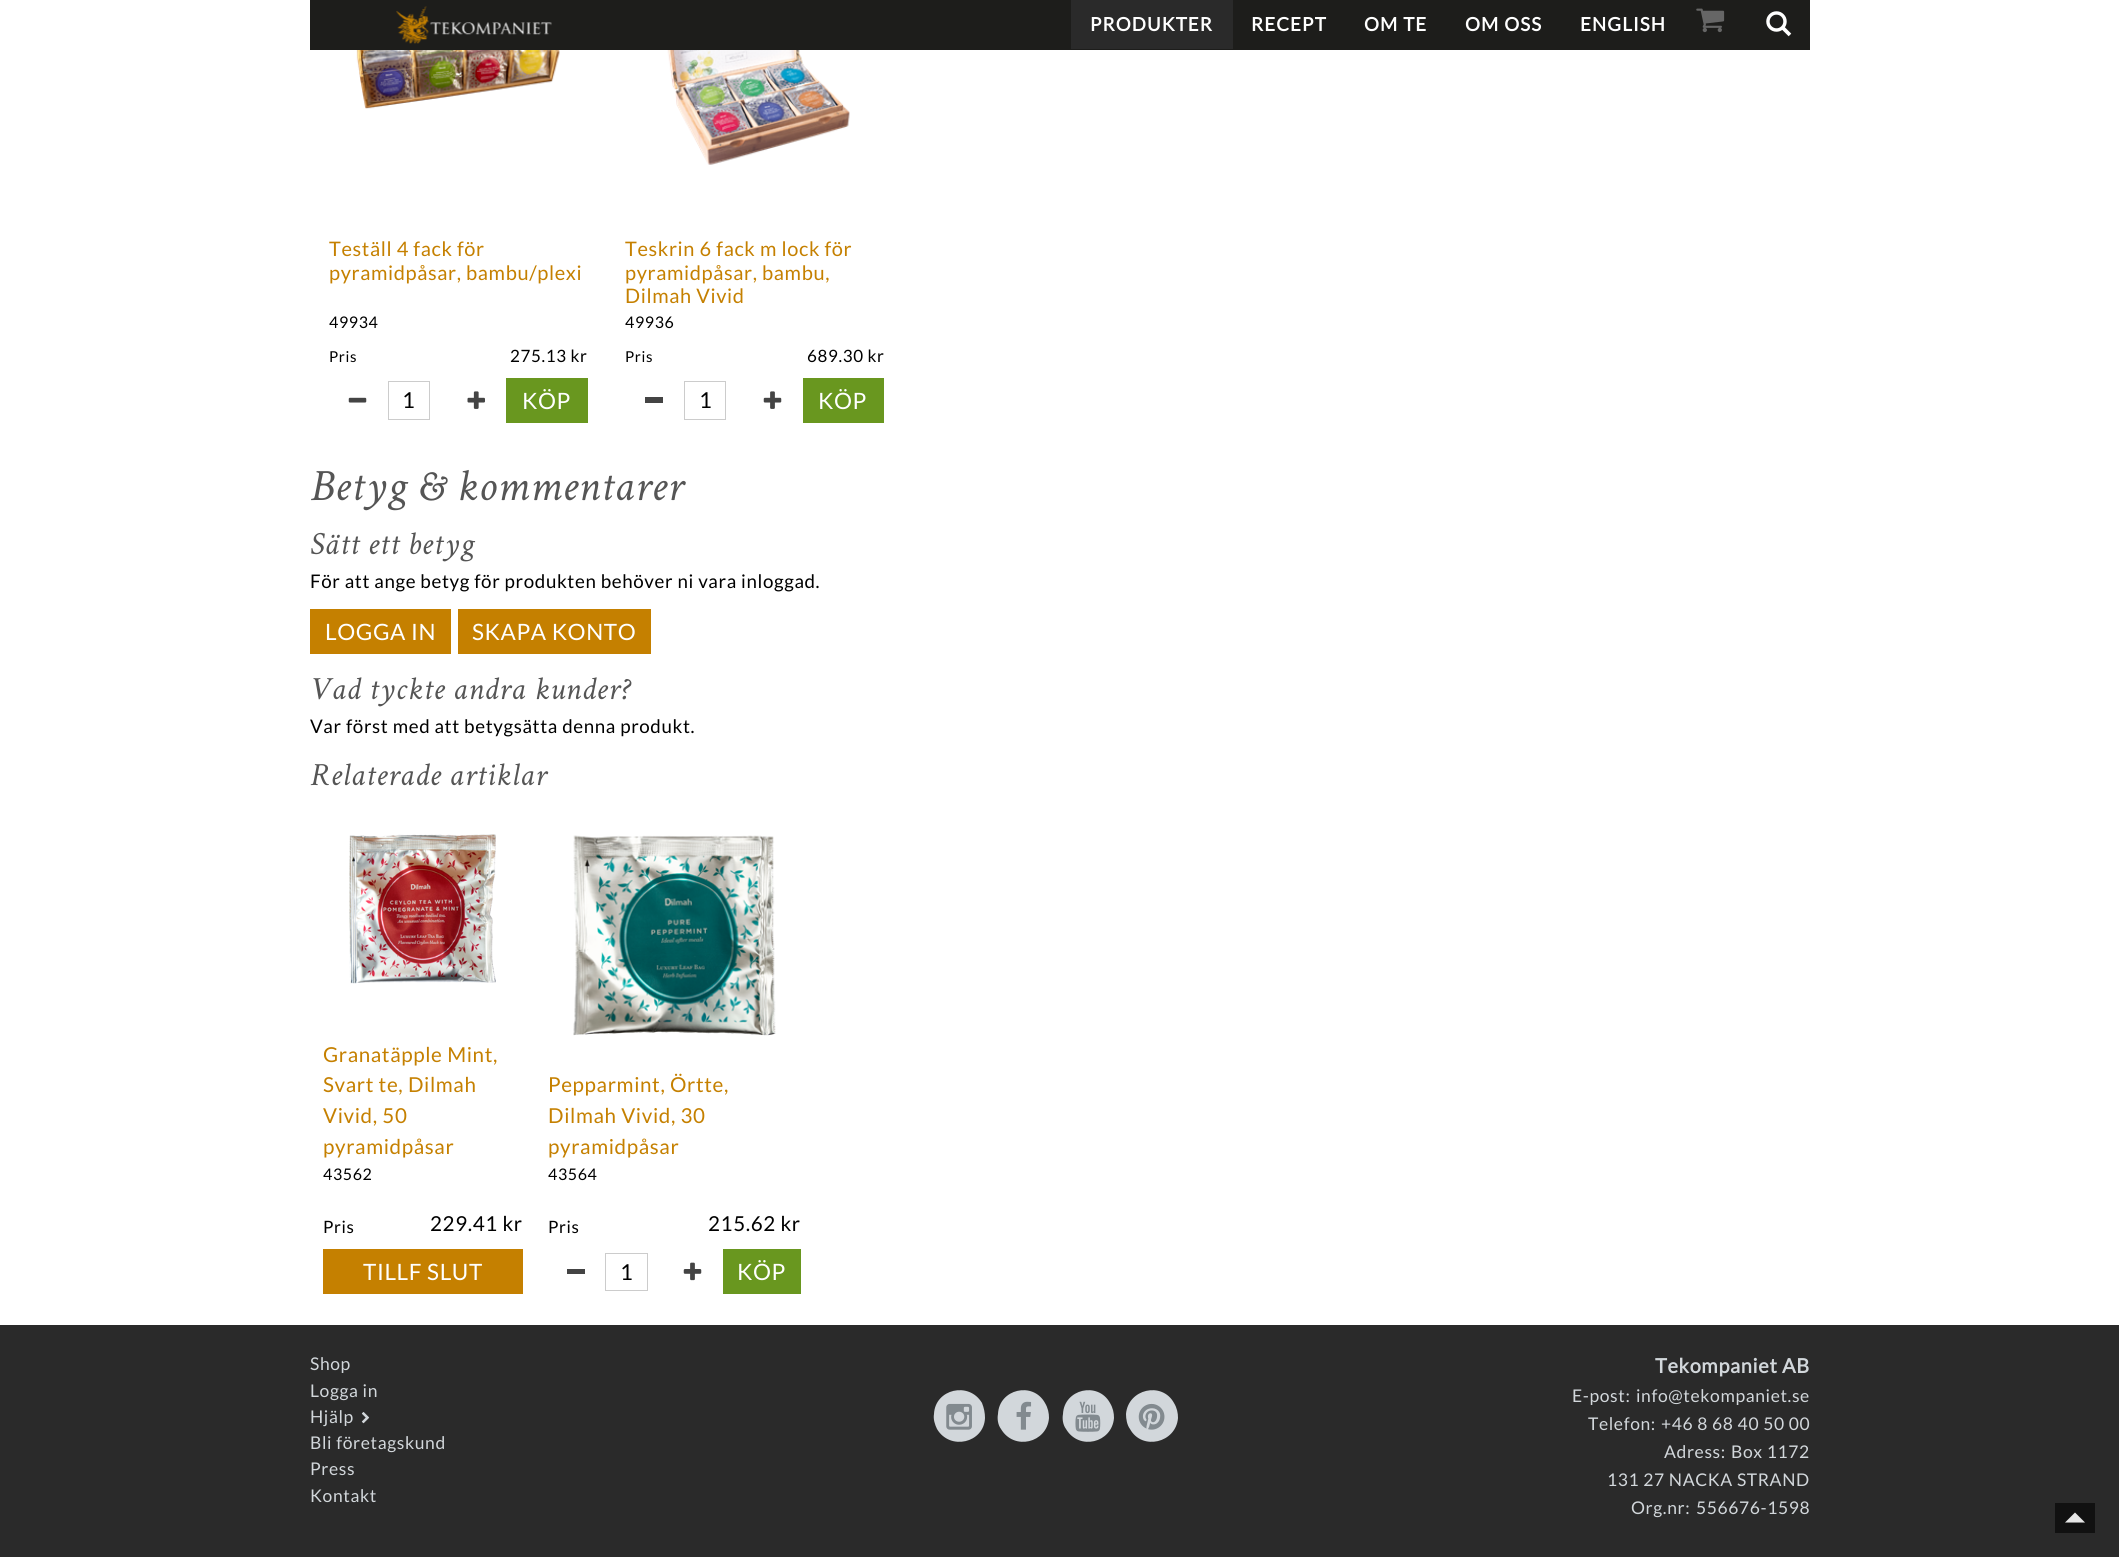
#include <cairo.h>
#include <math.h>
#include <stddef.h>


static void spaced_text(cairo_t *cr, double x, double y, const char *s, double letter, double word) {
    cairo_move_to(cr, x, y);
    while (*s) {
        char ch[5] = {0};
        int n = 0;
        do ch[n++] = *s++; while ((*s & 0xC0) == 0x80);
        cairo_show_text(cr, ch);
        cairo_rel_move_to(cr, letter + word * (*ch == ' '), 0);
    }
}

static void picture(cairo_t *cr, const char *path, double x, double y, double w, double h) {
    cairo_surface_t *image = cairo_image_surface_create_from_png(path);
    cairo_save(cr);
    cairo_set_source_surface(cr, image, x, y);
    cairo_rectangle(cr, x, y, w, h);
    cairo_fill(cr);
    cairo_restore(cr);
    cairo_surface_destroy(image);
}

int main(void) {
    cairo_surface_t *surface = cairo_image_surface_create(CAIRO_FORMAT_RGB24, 2119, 1557);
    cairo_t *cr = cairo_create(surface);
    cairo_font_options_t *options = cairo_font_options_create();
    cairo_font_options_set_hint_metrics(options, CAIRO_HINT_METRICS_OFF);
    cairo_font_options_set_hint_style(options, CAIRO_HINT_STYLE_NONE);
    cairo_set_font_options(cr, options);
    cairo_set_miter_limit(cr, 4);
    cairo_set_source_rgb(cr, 1, 1, 1);
    cairo_paint(cr);
    cairo_set_source_rgb(cr, 0.114, 0.114, 0.106);
    cairo_rectangle(cr, 310, 0, 1500, 50);
    cairo_fill(cr);
    picture(cr, "img1.png", 396, 6, 156, 38);
    cairo_set_source_rgb(cr, 0.165, 0.165, 0.165);
    cairo_rectangle(cr, 1071, 0, 162, 49);
    cairo_fill(cr);
    cairo_select_font_face(cr, "Lato", CAIRO_FONT_SLANT_NORMAL, CAIRO_FONT_WEIGHT_BOLD);
    cairo_set_font_size(cr, 18.75);
    cairo_set_source_rgb(cr, 1, 1, 1);
    spaced_text(cr, 1090, 31, "PRODUKTER", 1.1, 0);
    spaced_text(cr, 1251, 31, "RECEPT", 1.1, 0);
    spaced_text(cr, 1364, 31, "OM TE", 1.1, 0);
    spaced_text(cr, 1465, 31, "OM OSS", 1.1, 0);
    spaced_text(cr, 1580, 31, "ENGLISH", 1.1, 0);
    picture(cr, "img2.png", 1696, 8, 29, 25);
    picture(cr, "img3.png", 1766, 11, 26, 26);
    picture(cr, "img4.png", 356, 50, 204, 59);
    cairo_select_font_face(cr, "Lato", CAIRO_FONT_SLANT_NORMAL, CAIRO_FONT_WEIGHT_NORMAL);
    cairo_set_font_size(cr, 20);
    cairo_set_source_rgb(cr, 0.773, 0.502, 0);
    spaced_text(cr, 329, 256, "Teställ 4 fack för", 0.62, 0);
    spaced_text(cr, 329, 280, "pyramidpåsar, bambu/plexi", 0.62, 0);
    cairo_set_font_size(cr, 16);
    cairo_set_source_rgb(cr, 0, 0, 0);
    spaced_text(cr, 329, 328, "49934", 0.62, 0);
    cairo_set_font_size(cr, 15);
    spaced_text(cr, 329, 362, "Pris", 0.62, 0);
    cairo_set_font_size(cr, 17);
    spaced_text(cr, 510, 362, "275.13 kr", 0.62, 0);
    picture(cr, "img5.png", 348, 397, 19, 6);
    cairo_rectangle(cr, 388.5, 381.5, 41, 38);
    cairo_set_source_rgb(cr, 0.8, 0.8, 0.8);
    cairo_set_line_width(cr, 1);
    cairo_stroke(cr);
    cairo_set_font_size(cr, 22);
    cairo_set_source_rgb(cr, 0, 0, 0);
    cairo_move_to(cr, 402, 408);
    cairo_show_text(cr, "1");
    picture(cr, "img6.png", 467, 391, 18, 18);
    cairo_set_source_rgb(cr, 0.412, 0.592, 0.122);
    cairo_rectangle(cr, 506, 378, 82, 45);
    cairo_fill(cr);
    cairo_set_font_size(cr, 22.5);
    cairo_set_source_rgb(cr, 1, 1, 1);
    spaced_text(cr, 522, 409, "KÖP", 0.62, 0);
    picture(cr, "img7.png", 667, 50, 183, 115);
    cairo_set_font_size(cr, 20);
    cairo_set_source_rgb(cr, 0.773, 0.502, 0);
    spaced_text(cr, 625, 256, "Teskrin 6 fack m lock för", 0.62, 0);
    spaced_text(cr, 625, 280, "pyramidpåsar, bambu,", 0.62, 0);
    spaced_text(cr, 625, 303, "Dilmah Vivid", 0.62, 0);
    cairo_set_font_size(cr, 16);
    cairo_set_source_rgb(cr, 0, 0, 0);
    spaced_text(cr, 625, 328, "49936", 0.62, 0);
    cairo_set_font_size(cr, 15);
    spaced_text(cr, 625, 362, "Pris", 0.62, 0);
    cairo_set_font_size(cr, 17);
    spaced_text(cr, 807, 362, "689.30 kr", 0.62, 0);
    cairo_set_source_rgb(cr, 0.267, 0.267, 0.267);
    cairo_rectangle(cr, 645, 397, 18, 6);
    cairo_fill(cr);
    cairo_rectangle(cr, 684.5, 381.5, 41, 38);
    cairo_set_source_rgb(cr, 0.8, 0.8, 0.8);
    cairo_stroke(cr);
    cairo_set_font_size(cr, 22);
    cairo_set_source_rgb(cr, 0, 0, 0);
    cairo_move_to(cr, 699, 408);
    cairo_show_text(cr, "1");
    picture(cr, "img8.png", 763, 391, 19, 18);
    cairo_set_source_rgb(cr, 0.412, 0.592, 0.122);
    cairo_rectangle(cr, 803, 378, 81, 45);
    cairo_fill(cr);
    cairo_set_font_size(cr, 22.5);
    cairo_set_source_rgb(cr, 1, 1, 1);
    spaced_text(cr, 818, 409, "KÖP", 0.62, 0);
    cairo_select_font_face(cr, "Crimson Text", CAIRO_FONT_SLANT_ITALIC, CAIRO_FONT_WEIGHT_NORMAL);
    cairo_set_font_size(cr, 45);
    cairo_set_source_rgb(cr, 0.333, 0.333, 0.333);
    spaced_text(cr, 310, 500, "Betyg & kommentarer", 0.62, 0);
    cairo_set_font_size(cr, 32.5);
    spaced_text(cr, 310, 554, "Sätt ett betyg", 0.62, 0);
    cairo_select_font_face(cr, "Lato", CAIRO_FONT_SLANT_NORMAL, CAIRO_FONT_WEIGHT_NORMAL);
    cairo_set_font_size(cr, 18.75);
    cairo_set_source_rgb(cr, 0, 0, 0);
    spaced_text(cr, 310, 588, "För att ange betyg för produkten behöver ni vara inloggad.", 0.62, 0);
    cairo_set_source_rgb(cr, 0.773, 0.502, 0);
    cairo_rectangle(cr, 310, 609, 141, 45);
    cairo_fill(cr);
    cairo_set_font_size(cr, 22.5);
    cairo_set_source_rgb(cr, 1, 1, 1);
    spaced_text(cr, 325, 640, "LOGGA IN", 0.62, 0);
    cairo_set_source_rgb(cr, 0.773, 0.502, 0);
    cairo_rectangle(cr, 458, 609, 193, 45);
    cairo_fill(cr);
    cairo_set_source_rgb(cr, 1, 1, 1);
    spaced_text(cr, 472, 640, "SKAPA KONTO", 0.62, 0);
    cairo_select_font_face(cr, "Crimson Text", CAIRO_FONT_SLANT_ITALIC, CAIRO_FONT_WEIGHT_NORMAL);
    cairo_set_font_size(cr, 32.5);
    cairo_set_source_rgb(cr, 0.333, 0.333, 0.333);
    spaced_text(cr, 310, 699, "Vad tyckte andra kunder?", 0.62, 0);
    cairo_select_font_face(cr, "Lato", CAIRO_FONT_SLANT_NORMAL, CAIRO_FONT_WEIGHT_NORMAL);
    cairo_set_font_size(cr, 18.75);
    cairo_set_source_rgb(cr, 0, 0, 0);
    spaced_text(cr, 310, 733, "Var först med att betygsätta denna produkt.", 0.62, 0);
    cairo_select_font_face(cr, "Crimson Text", CAIRO_FONT_SLANT_ITALIC, CAIRO_FONT_WEIGHT_NORMAL);
    cairo_set_font_size(cr, 32.5);
    cairo_set_source_rgb(cr, 0.333, 0.333, 0.333);
    spaced_text(cr, 310, 785, "Relaterade artiklar", 0.62, 0);
    picture(cr, "img9.png", 349, 834, 147, 150);
    cairo_select_font_face(cr, "Lato", CAIRO_FONT_SLANT_NORMAL, CAIRO_FONT_WEIGHT_NORMAL);
    cairo_set_font_size(cr, 20.6);
    cairo_set_source_rgb(cr, 0.773, 0.502, 0);
    spaced_text(cr, 323, 1062, "Granatäpple Mint,", 0.62, 0);
    spaced_text(cr, 323, 1092, "Svart te, Dilmah", 0.62, 0);
    spaced_text(cr, 323, 1123, "Vivid, 50", 0.62, 0);
    spaced_text(cr, 323, 1154, "pyramidpåsar", 0.62, 0);
    cairo_set_font_size(cr, 16);
    cairo_set_source_rgb(cr, 0, 0, 0);
    spaced_text(cr, 323, 1180, "43562", 0.62, 0);
    cairo_set_font_size(cr, 17);
    spaced_text(cr, 323, 1233, "Pris", 0.62, 0);
    cairo_set_font_size(cr, 20.6);
    spaced_text(cr, 430, 1231, "229.41 kr", 0.62, 0);
    cairo_set_source_rgb(cr, 0.773, 0.502, 0);
    cairo_rectangle(cr, 323, 1249, 200, 45);
    cairo_fill(cr);
    cairo_set_font_size(cr, 22.5);
    cairo_set_source_rgb(cr, 1, 1, 1);
    spaced_text(cr, 363, 1280, "TILLF SLUT", 0.62, 0);
    picture(cr, "img10.png", 573, 835, 203, 201);
    cairo_set_font_size(cr, 20.6);
    cairo_set_source_rgb(cr, 0.773, 0.502, 0);
    spaced_text(cr, 548, 1092, "Pepparmint, Örtte,", 0.62, 0);
    spaced_text(cr, 548, 1123, "Dilmah Vivid, 30", 0.62, 0);
    spaced_text(cr, 548, 1154, "pyramidpåsar", 0.62, 0);
    cairo_set_font_size(cr, 16);
    cairo_set_source_rgb(cr, 0, 0, 0);
    spaced_text(cr, 548, 1180, "43564", 0.62, 0);
    cairo_set_font_size(cr, 17);
    spaced_text(cr, 548, 1233, "Pris", 0.62, 0);
    cairo_set_font_size(cr, 20.6);
    spaced_text(cr, 708, 1231, "215.62 kr", 0.62, 0);
    cairo_set_source_rgb(cr, 0.267, 0.267, 0.267);
    cairo_rectangle(cr, 567, 1269, 18, 5);
    cairo_fill(cr);
    cairo_rectangle(cr, 605.5, 1253.5, 42, 37);
    cairo_set_source_rgb(cr, 0.8, 0.8, 0.8);
    cairo_stroke(cr);
    cairo_set_font_size(cr, 22);
    cairo_set_source_rgb(cr, 0, 0, 0);
    cairo_move_to(cr, 620, 1280);
    cairo_show_text(cr, "1");
    picture(cr, "img11.png", 683, 1262, 19, 19);
    cairo_set_source_rgb(cr, 0.412, 0.592, 0.122);
    cairo_rectangle(cr, 723, 1249, 78, 45);
    cairo_fill(cr);
    cairo_set_font_size(cr, 22.5);
    cairo_set_source_rgb(cr, 1, 1, 1);
    spaced_text(cr, 737, 1280, "KÖP", 0.62, 0);
    cairo_set_source_rgb(cr, 0.165, 0.165, 0.165);
    cairo_rectangle(cr, 0, 1325, 2119, 232);
    cairo_fill(cr);
    cairo_set_font_size(cr, 17.5);
    cairo_set_source_rgb(cr, 0.824, 0.843, 0.859);
    spaced_text(cr, 310, 1370, "Shop", 0.62, 0);
    spaced_text(cr, 310, 1397, "Logga in", 0.62, 0);
    spaced_text(cr, 310, 1423, "Hjälp", 0.62, 0);
    picture(cr, "img12.png", 361, 1412, 9, 12);
    spaced_text(cr, 310, 1449, "Bli företagskund", 0.62, 0);
    spaced_text(cr, 310, 1475, "Press", 0.62, 0);
    spaced_text(cr, 310, 1502, "Kontakt", 0.62, 0);
    cairo_new_path(cr);
    cairo_move_to(cr, 982, 1403);
    cairo_curve_to(cr, 984, 1408, 985, 1413, 985, 1418);
    cairo_curve_to(cr, 984, 1443, 950, 1451, 937, 1429);
    cairo_curve_to(cr, 935, 1425, 933, 1419, 934, 1414);
    cairo_curve_to(cr, 935, 1389, 969, 1381, 982, 1403);
    cairo_close_path(cr);
    cairo_fill(cr);
    picture(cr, "img13.png", 946, 1403, 26, 27);
    cairo_new_path(cr);
    cairo_move_to(cr, 1045, 1403);
    cairo_curve_to(cr, 1048, 1408, 1049, 1413, 1049, 1418);
    cairo_curve_to(cr, 1047, 1443, 1014, 1451, 1001, 1429);
    cairo_curve_to(cr, 998, 1425, 997, 1419, 998, 1414);
    cairo_curve_to(cr, 999, 1389, 1033, 1381, 1045, 1403);
    cairo_close_path(cr);
    cairo_fill(cr);
    picture(cr, "img14.png", 1016, 1401, 16, 29);
    cairo_new_path(cr);
    cairo_move_to(cr, 1110, 1403);
    cairo_curve_to(cr, 1113, 1408, 1114, 1413, 1114, 1418);
    cairo_curve_to(cr, 1112, 1443, 1079, 1451, 1066, 1429);
    cairo_curve_to(cr, 1063, 1425, 1062, 1419, 1063, 1414);
    cairo_curve_to(cr, 1064, 1389, 1098, 1381, 1110, 1403);
    cairo_close_path(cr);
    cairo_fill(cr);
    picture(cr, "img15.png", 1075, 1401, 26, 31);
    cairo_new_path(cr);
    cairo_move_to(cr, 1174, 1403);
    cairo_curve_to(cr, 1177, 1408, 1178, 1413, 1178, 1418);
    cairo_curve_to(cr, 1176, 1443, 1142, 1451, 1130, 1429);
    cairo_curve_to(cr, 1127, 1425, 1126, 1419, 1126, 1414);
    cairo_curve_to(cr, 1128, 1389, 1162, 1381, 1174, 1403);
    cairo_close_path(cr);
    cairo_fill(cr);
    picture(cr, "img16.png", 1138, 1403, 27, 27);
    cairo_select_font_face(cr, "Lato", CAIRO_FONT_SLANT_NORMAL, CAIRO_FONT_WEIGHT_BOLD);
    cairo_set_font_size(cr, 20);
    spaced_text(cr, 1655, 1373, "Tekompaniet AB", 0.62, 0);
    cairo_select_font_face(cr, "Lato", CAIRO_FONT_SLANT_NORMAL, CAIRO_FONT_WEIGHT_NORMAL);
    cairo_set_font_size(cr, 17.5);
    spaced_text(cr, 1572, 1402, "E-post:", 0.62, 0);
    spaced_text(cr, 1636, 1402, "info@tekompaniet.se", 0.62, 0);
    spaced_text(cr, 1588, 1430, "Telefon:", 0.62, 0);
    spaced_text(cr, 1661, 1430, "+46 8 68 40 50 00", 0.62, 0);
    spaced_text(cr, 1664, 1458, "Adress:", 0.62, 0);
    spaced_text(cr, 1731, 1458, "Box 1172", 0.62, 0);
    spaced_text(cr, 1607, 1486, "131 27 NACKA STRAND", 0.62, 0);
    spaced_text(cr, 1631, 1514, "Org.nr:", 0.62, 0);
    spaced_text(cr, 1696, 1514, "556676-1598", 0.62, 0);
    cairo_set_source_rgb(cr, 0.067, 0.067, 0.067);
    cairo_rectangle(cr, 2055, 1503, 40, 30);
    cairo_fill(cr);
    cairo_set_source_rgb(cr, 0.906, 0.906, 0.906);
    cairo_new_path(cr);
    cairo_move_to(cr, 2085, 1522.5);
    cairo_line_to(cr, 2065, 1522.5);
    cairo_line_to(cr, 2075, 1512.5);
    cairo_close_path(cr);
    cairo_fill(cr);
    cairo_surface_write_to_png(surface, "page.png");
    cairo_font_options_destroy(options);
    cairo_destroy(cr);
    cairo_surface_destroy(surface);
    return 0;
}
